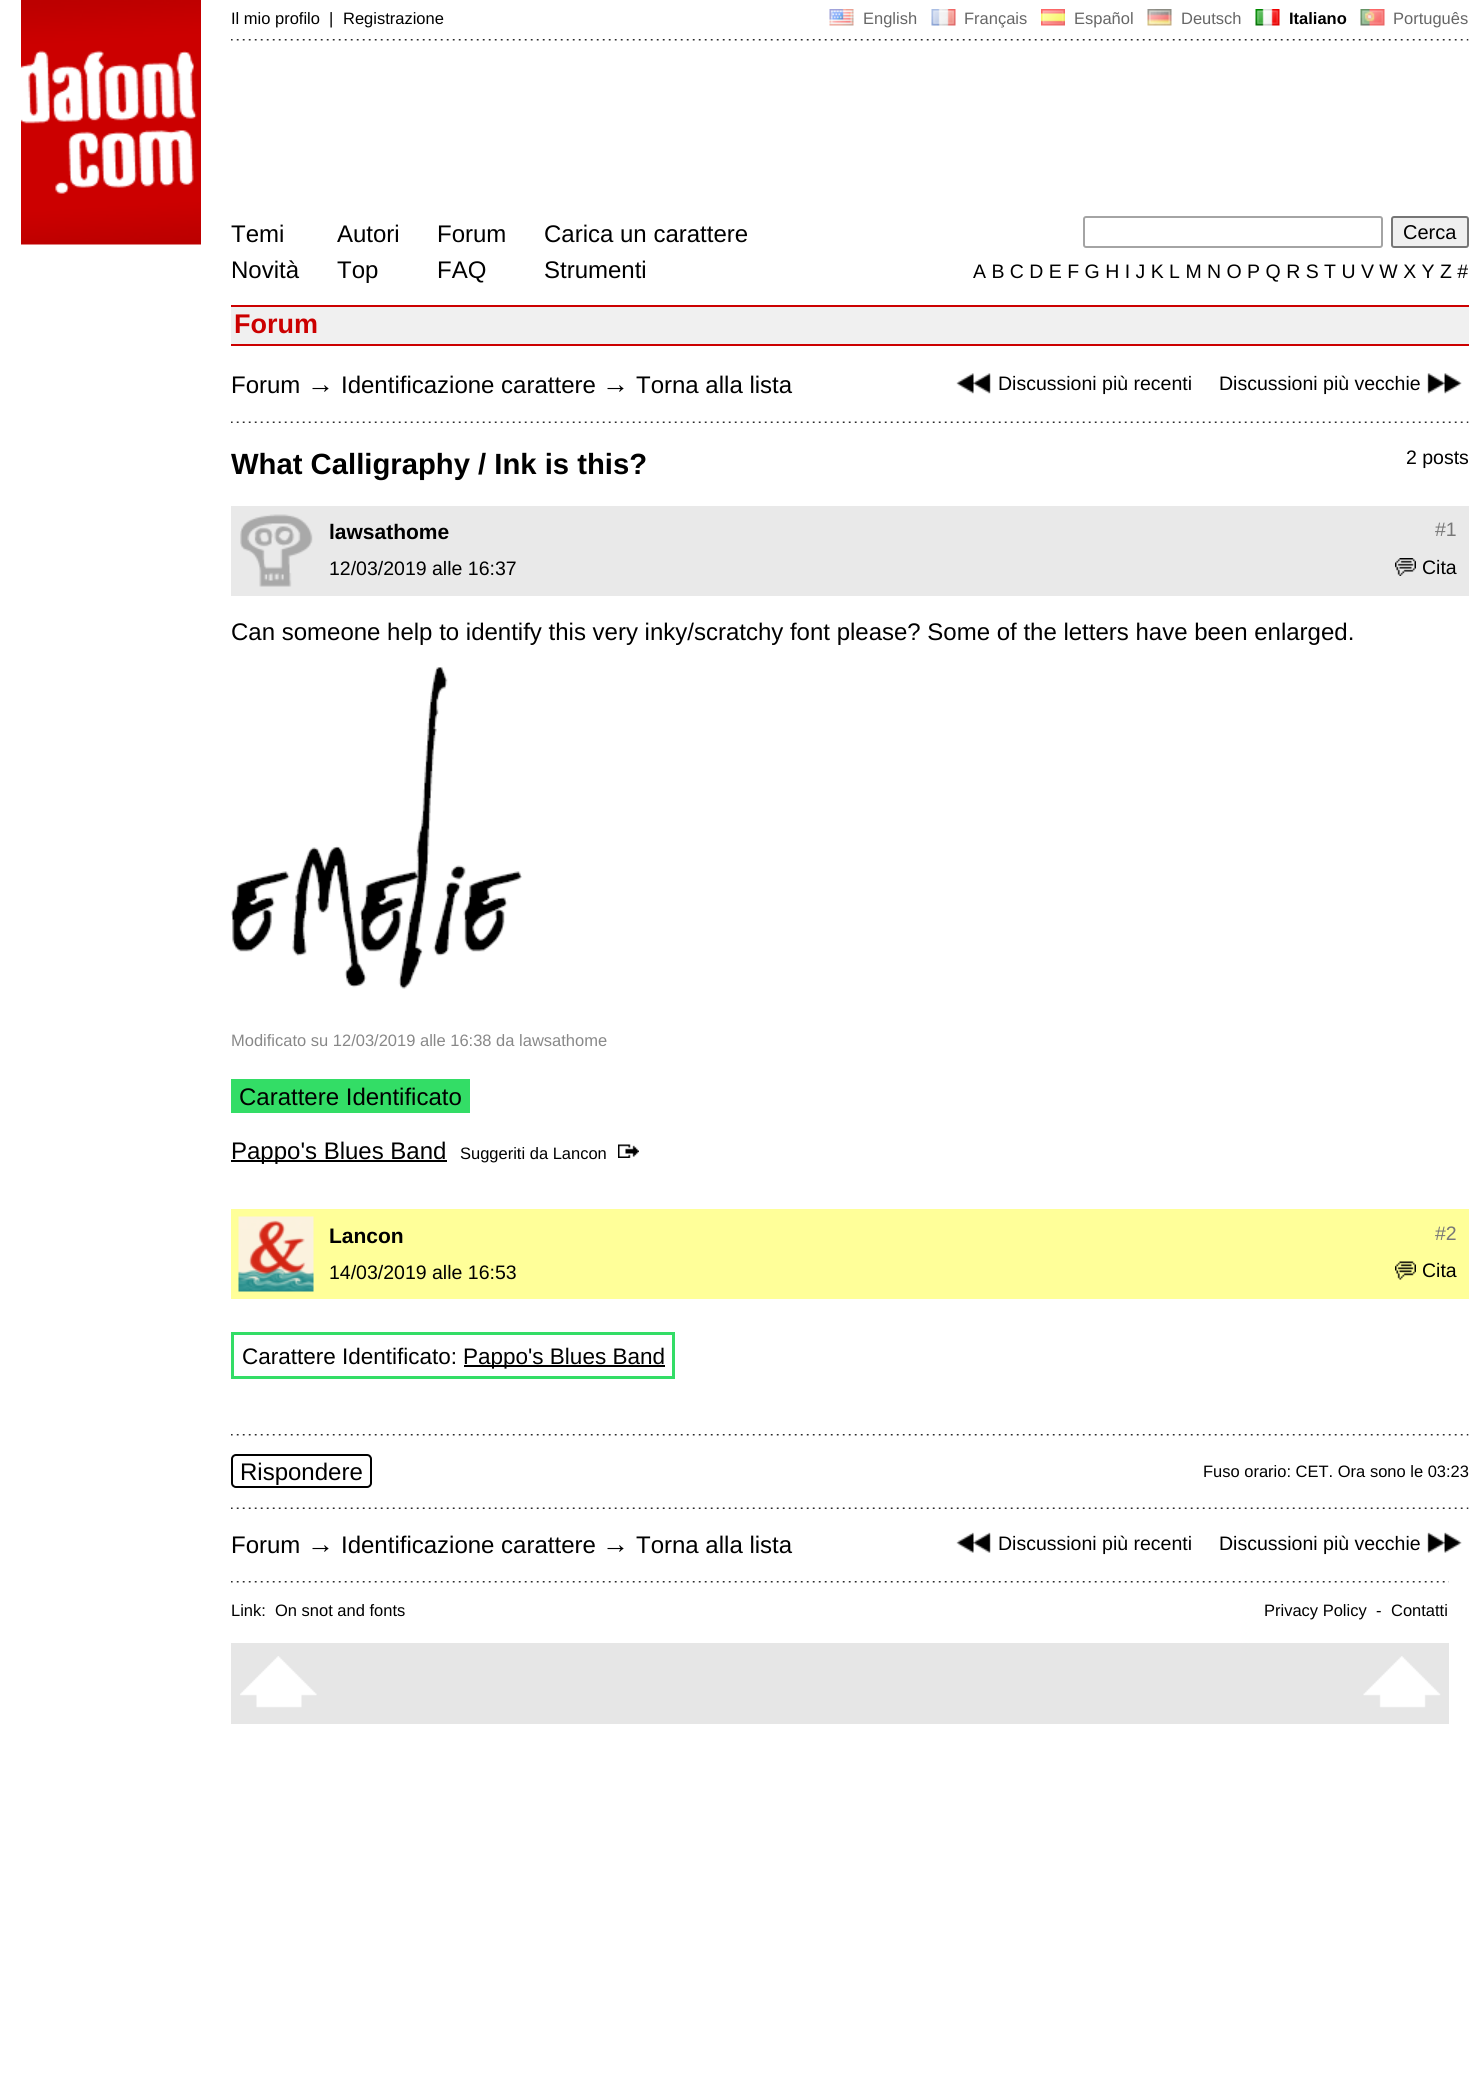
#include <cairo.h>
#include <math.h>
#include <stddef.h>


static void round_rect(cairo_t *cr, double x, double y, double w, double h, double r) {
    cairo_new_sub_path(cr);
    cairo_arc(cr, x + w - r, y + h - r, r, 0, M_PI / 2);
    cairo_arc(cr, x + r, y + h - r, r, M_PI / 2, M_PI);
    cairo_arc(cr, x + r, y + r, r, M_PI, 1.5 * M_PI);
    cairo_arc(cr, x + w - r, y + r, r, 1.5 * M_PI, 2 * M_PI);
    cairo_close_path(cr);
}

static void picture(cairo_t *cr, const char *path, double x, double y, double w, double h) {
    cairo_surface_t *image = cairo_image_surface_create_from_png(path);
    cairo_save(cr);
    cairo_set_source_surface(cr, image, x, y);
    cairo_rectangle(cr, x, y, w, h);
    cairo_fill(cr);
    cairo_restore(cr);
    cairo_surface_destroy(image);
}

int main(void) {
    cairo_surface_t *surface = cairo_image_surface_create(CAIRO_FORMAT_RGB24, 1469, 2091);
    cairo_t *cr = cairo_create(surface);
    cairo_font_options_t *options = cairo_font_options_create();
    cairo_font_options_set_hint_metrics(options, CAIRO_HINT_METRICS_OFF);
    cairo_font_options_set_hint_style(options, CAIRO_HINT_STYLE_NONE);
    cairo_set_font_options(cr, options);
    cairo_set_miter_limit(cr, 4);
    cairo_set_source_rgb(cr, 1, 1, 1);
    cairo_paint(cr);
    picture(cr, "img1.png", 21, 0, 180, 245);
    cairo_select_font_face(cr, "Liberation Sans", CAIRO_FONT_SLANT_NORMAL, CAIRO_FONT_WEIGHT_NORMAL);
    cairo_set_font_size(cr, 16.5);
    cairo_set_source_rgb(cr, 0, 0, 0);
    cairo_move_to(cr, 231, 24);
    cairo_show_text(cr, "Il mio profilo");
    cairo_move_to(cr, 329, 24);
    cairo_show_text(cr, "|");
    cairo_move_to(cr, 343, 24);
    cairo_show_text(cr, "Registrazione");
    picture(cr, "img2.png", 829, 9, 25, 17);
    cairo_set_source_rgb(cr, 0.4, 0.4, 0.4);
    cairo_move_to(cr, 863, 24);
    cairo_show_text(cr, "English");
    picture(cr, "img3.png", 931, 9, 25, 17);
    cairo_move_to(cr, 964, 24);
    cairo_show_text(cr, "Français");
    picture(cr, "img4.png", 1041, 9, 24, 17);
    cairo_move_to(cr, 1074, 24);
    cairo_show_text(cr, "Español");
    picture(cr, "img5.png", 1147, 9, 25, 17);
    cairo_move_to(cr, 1181, 24);
    cairo_show_text(cr, "Deutsch");
    picture(cr, "img6.png", 1255, 9, 25, 17);
    cairo_select_font_face(cr, "Liberation Sans", CAIRO_FONT_SLANT_NORMAL, CAIRO_FONT_WEIGHT_BOLD);
    cairo_set_source_rgb(cr, 0, 0, 0);
    cairo_move_to(cr, 1289, 24);
    cairo_show_text(cr, "Italiano");
    picture(cr, "img7.png", 1360, 9, 25, 17);
    cairo_select_font_face(cr, "Liberation Sans", CAIRO_FONT_SLANT_NORMAL, CAIRO_FONT_WEIGHT_NORMAL);
    cairo_set_source_rgb(cr, 0.4, 0.4, 0.4);
    cairo_move_to(cr, 1393, 24);
    cairo_show_text(cr, "Português");
    picture(cr, "img8.png", 231, 39, 1238, 2);
    cairo_set_font_size(cr, 24);
    cairo_set_source_rgb(cr, 0, 0, 0);
    cairo_move_to(cr, 231, 242);
    cairo_show_text(cr, "Temi");
    cairo_move_to(cr, 231, 278);
    cairo_show_text(cr, "Novità");
    cairo_move_to(cr, 337, 242);
    cairo_show_text(cr, "Autori");
    cairo_move_to(cr, 337, 278);
    cairo_show_text(cr, "Top");
    cairo_move_to(cr, 437, 242);
    cairo_show_text(cr, "Forum");
    cairo_move_to(cr, 437, 278);
    cairo_show_text(cr, "FAQ");
    cairo_move_to(cr, 544, 242);
    cairo_show_text(cr, "Carica un carattere");
    cairo_move_to(cr, 544, 278);
    cairo_show_text(cr, "Strumenti");
    round_rect(cr, 1084, 217, 298, 30, 2);
    cairo_set_source_rgb(cr, 0.643, 0.643, 0.643);
    cairo_stroke(cr);
    cairo_set_source_rgb(cr, 0.937, 0.937, 0.937);
    round_rect(cr, 1392, 217, 76, 30, 2);
    cairo_fill_preserve(cr);
    cairo_set_source_rgb(cr, 0.463, 0.463, 0.463);
    cairo_stroke(cr);
    cairo_set_font_size(cr, 20);
    cairo_set_source_rgb(cr, 0, 0, 0);
    cairo_move_to(cr, 1403, 239);
    cairo_show_text(cr, "Cerca");
    cairo_set_font_size(cr, 19.5);
    cairo_move_to(cr, 973, 278);
    cairo_show_text(cr, "A B C D E F G H I J K L M N O P Q R S T U V W X Y Z #");
    cairo_set_source_rgb(cr, 0.941, 0.941, 0.941);
    cairo_rectangle(cr, 231, 307, 1238, 37);
    cairo_fill(cr);
    cairo_set_source_rgb(cr, 0.8, 0, 0);
    cairo_rectangle(cr, 231, 305, 1238, 2);
    cairo_fill(cr);
    cairo_rectangle(cr, 231, 344, 1238, 2);
    cairo_fill(cr);
    cairo_select_font_face(cr, "Liberation Sans", CAIRO_FONT_SLANT_NORMAL, CAIRO_FONT_WEIGHT_BOLD);
    cairo_set_font_size(cr, 27);
    cairo_move_to(cr, 234, 333);
    cairo_show_text(cr, "Forum");
    cairo_select_font_face(cr, "Liberation Sans", CAIRO_FONT_SLANT_NORMAL, CAIRO_FONT_WEIGHT_NORMAL);
    cairo_set_font_size(cr, 24);
    cairo_set_source_rgb(cr, 0, 0, 0);
    cairo_move_to(cr, 231, 393);
    cairo_show_text(cr, "Forum");
    cairo_set_font_size(cr, 27);
    cairo_move_to(cr, 307, 393);
    cairo_show_text(cr, "→");
    cairo_set_font_size(cr, 24);
    cairo_move_to(cr, 341, 393);
    cairo_show_text(cr, "Identificazione carattere");
    cairo_set_font_size(cr, 27);
    cairo_move_to(cr, 602, 393);
    cairo_show_text(cr, "→");
    cairo_set_font_size(cr, 24);
    cairo_move_to(cr, 636, 393);
    cairo_show_text(cr, "Torna alla lista");
    picture(cr, "img9.png", 956, 373, 35, 21);
    cairo_set_font_size(cr, 19.5);
    cairo_move_to(cr, 998, 390);
    cairo_show_text(cr, "Discussioni più recenti");
    cairo_move_to(cr, 1219, 390);
    cairo_show_text(cr, "Discussioni più vecchie");
    picture(cr, "img10.png", 1427, 373, 35, 21);
    picture(cr, "img11.png", 231, 421, 1238, 2);
    cairo_select_font_face(cr, "Liberation Sans", CAIRO_FONT_SLANT_NORMAL, CAIRO_FONT_WEIGHT_BOLD);
    cairo_set_font_size(cr, 29.25);
    cairo_move_to(cr, 231, 474);
    cairo_show_text(cr, "What Calligraphy / Ink is this?");
    cairo_select_font_face(cr, "Liberation Sans", CAIRO_FONT_SLANT_NORMAL, CAIRO_FONT_WEIGHT_NORMAL);
    cairo_set_font_size(cr, 19.5);
    cairo_move_to(cr, 1406, 464);
    cairo_show_text(cr, "2 posts");
    cairo_set_source_rgb(cr, 0.914, 0.914, 0.914);
    cairo_rectangle(cr, 231, 506, 1238, 90);
    cairo_fill(cr);
    picture(cr, "img12.png", 240, 514, 73, 73);
    cairo_select_font_face(cr, "Liberation Sans", CAIRO_FONT_SLANT_NORMAL, CAIRO_FONT_WEIGHT_BOLD);
    cairo_set_font_size(cr, 21);
    cairo_set_source_rgb(cr, 0, 0, 0);
    cairo_move_to(cr, 329, 539);
    cairo_show_text(cr, "lawsathome");
    cairo_select_font_face(cr, "Liberation Sans", CAIRO_FONT_SLANT_NORMAL, CAIRO_FONT_WEIGHT_NORMAL);
    cairo_set_font_size(cr, 19.5);
    cairo_set_source_rgb(cr, 0.467, 0.467, 0.467);
    cairo_move_to(cr, 1435, 536);
    cairo_show_text(cr, "#1");
    cairo_set_source_rgb(cr, 0, 0, 0);
    cairo_move_to(cr, 329, 575);
    cairo_show_text(cr, "12/03/2019 alle 16:37");
    picture(cr, "img13.png", 1395, 558, 21, 18);
    cairo_move_to(cr, 1422, 574);
    cairo_show_text(cr, "Cita");
    cairo_set_font_size(cr, 24);
    cairo_move_to(cr, 231, 640);
    cairo_show_text(cr, "Can someone help to identify this very inky/scratchy font please? Some of the letters have been enlarged.");
    picture(cr, "img14.png", 231, 667, 291, 322);
    cairo_set_font_size(cr, 16.5);
    cairo_set_source_rgb(cr, 0.533, 0.533, 0.533);
    cairo_move_to(cr, 231, 1046);
    cairo_show_text(cr, "Modificato su 12/03/2019 alle 16:38 da lawsathome");
    cairo_set_source_rgb(cr, 0.2, 0.867, 0.4);
    cairo_rectangle(cr, 231, 1079, 239, 34);
    cairo_fill(cr);
    cairo_set_font_size(cr, 24);
    cairo_set_source_rgb(cr, 0, 0, 0);
    cairo_move_to(cr, 239, 1105);
    cairo_show_text(cr, "Carattere Identificato");
    cairo_rectangle(cr, 231, 1160, 216, 2);
    cairo_fill(cr);
    cairo_move_to(cr, 231, 1159);
    cairo_show_text(cr, "Pappo's Blues Band");
    cairo_set_font_size(cr, 16.5);
    cairo_move_to(cr, 460, 1159);
    cairo_show_text(cr, "Suggeriti da Lancon");
    picture(cr, "img15.png", 618, 1144, 21, 14);
    cairo_set_source_rgb(cr, 1, 1, 0.6);
    cairo_rectangle(cr, 231, 1209, 1238, 90);
    cairo_fill(cr);
    picture(cr, "img16.png", 238, 1216, 76, 76);
    cairo_select_font_face(cr, "Liberation Sans", CAIRO_FONT_SLANT_NORMAL, CAIRO_FONT_WEIGHT_BOLD);
    cairo_set_font_size(cr, 21);
    cairo_set_source_rgb(cr, 0, 0, 0);
    cairo_move_to(cr, 329, 1243);
    cairo_show_text(cr, "Lancon");
    cairo_select_font_face(cr, "Liberation Sans", CAIRO_FONT_SLANT_NORMAL, CAIRO_FONT_WEIGHT_NORMAL);
    cairo_set_font_size(cr, 19.5);
    cairo_set_source_rgb(cr, 0.467, 0.467, 0.467);
    cairo_move_to(cr, 1435, 1240);
    cairo_show_text(cr, "#2");
    cairo_set_source_rgb(cr, 0, 0, 0);
    cairo_move_to(cr, 329, 1279);
    cairo_show_text(cr, "14/03/2019 alle 16:53");
    picture(cr, "img17.png", 1395, 1261, 21, 19);
    cairo_move_to(cr, 1422, 1277);
    cairo_show_text(cr, "Cita");
    cairo_rectangle(cr, 232.5, 1333.5, 441, 44);
    cairo_set_source_rgb(cr, 0.2, 0.867, 0.4);
    cairo_set_line_width(cr, 3);
    cairo_stroke(cr);
    cairo_set_font_size(cr, 22.5);
    cairo_set_source_rgb(cr, 0, 0, 0);
    cairo_move_to(cr, 242, 1364);
    cairo_show_text(cr, "Carattere Identificato:");
    cairo_rectangle(cr, 464, 1365, 201, 2);
    cairo_fill(cr);
    cairo_move_to(cr, 463, 1364);
    cairo_show_text(cr, "Pappo's Blues Band");
    picture(cr, "img8.png", 231, 1434, 1238, 2);
    round_rect(cr, 232, 1455, 139, 32, 4);
    cairo_set_line_width(cr, 2);
    cairo_stroke(cr);
    cairo_set_font_size(cr, 24);
    cairo_move_to(cr, 240, 1480);
    cairo_show_text(cr, "Rispondere");
    cairo_set_font_size(cr, 16.5);
    cairo_move_to(cr, 1203, 1477);
    cairo_show_text(cr, "Fuso orario: CET. Ora sono le 03:23");
    picture(cr, "img11.png", 231, 1507, 1238, 2);
    cairo_set_font_size(cr, 24);
    cairo_move_to(cr, 231, 1553);
    cairo_show_text(cr, "Forum");
    cairo_set_font_size(cr, 27);
    cairo_move_to(cr, 307, 1553);
    cairo_show_text(cr, "→");
    cairo_set_font_size(cr, 24);
    cairo_move_to(cr, 341, 1553);
    cairo_show_text(cr, "Identificazione carattere");
    cairo_set_font_size(cr, 27);
    cairo_move_to(cr, 602, 1553);
    cairo_show_text(cr, "→");
    cairo_set_font_size(cr, 24);
    cairo_move_to(cr, 636, 1553);
    cairo_show_text(cr, "Torna alla lista");
    picture(cr, "img18.png", 956, 1532, 35, 21);
    cairo_set_font_size(cr, 19.5);
    cairo_move_to(cr, 998, 1550);
    cairo_show_text(cr, "Discussioni più recenti");
    cairo_move_to(cr, 1219, 1550);
    cairo_show_text(cr, "Discussioni più vecchie");
    picture(cr, "img19.png", 1427, 1532, 35, 21);
    picture(cr, "img20.png", 231, 1581, 1218, 2);
    cairo_set_font_size(cr, 16.5);
    cairo_move_to(cr, 231, 1616);
    cairo_show_text(cr, "Link:");
    cairo_move_to(cr, 275, 1616);
    cairo_show_text(cr, "On snot and fonts");
    cairo_move_to(cr, 1264, 1616);
    cairo_show_text(cr, "Privacy Policy");
    cairo_move_to(cr, 1376, 1616);
    cairo_show_text(cr, "-");
    cairo_move_to(cr, 1391, 1616);
    cairo_show_text(cr, "Contatti");
    cairo_set_source_rgb(cr, 0.902, 0.902, 0.902);
    cairo_rectangle(cr, 231, 1643, 1218, 81);
    cairo_fill(cr);
    picture(cr, "img21.png", 240, 1656, 77, 52);
    picture(cr, "img22.png", 1363, 1656, 78, 52);
    cairo_surface_write_to_png(surface, "page.png");
    cairo_font_options_destroy(options);
    cairo_destroy(cr);
    cairo_surface_destroy(surface);
    return 0;
}
